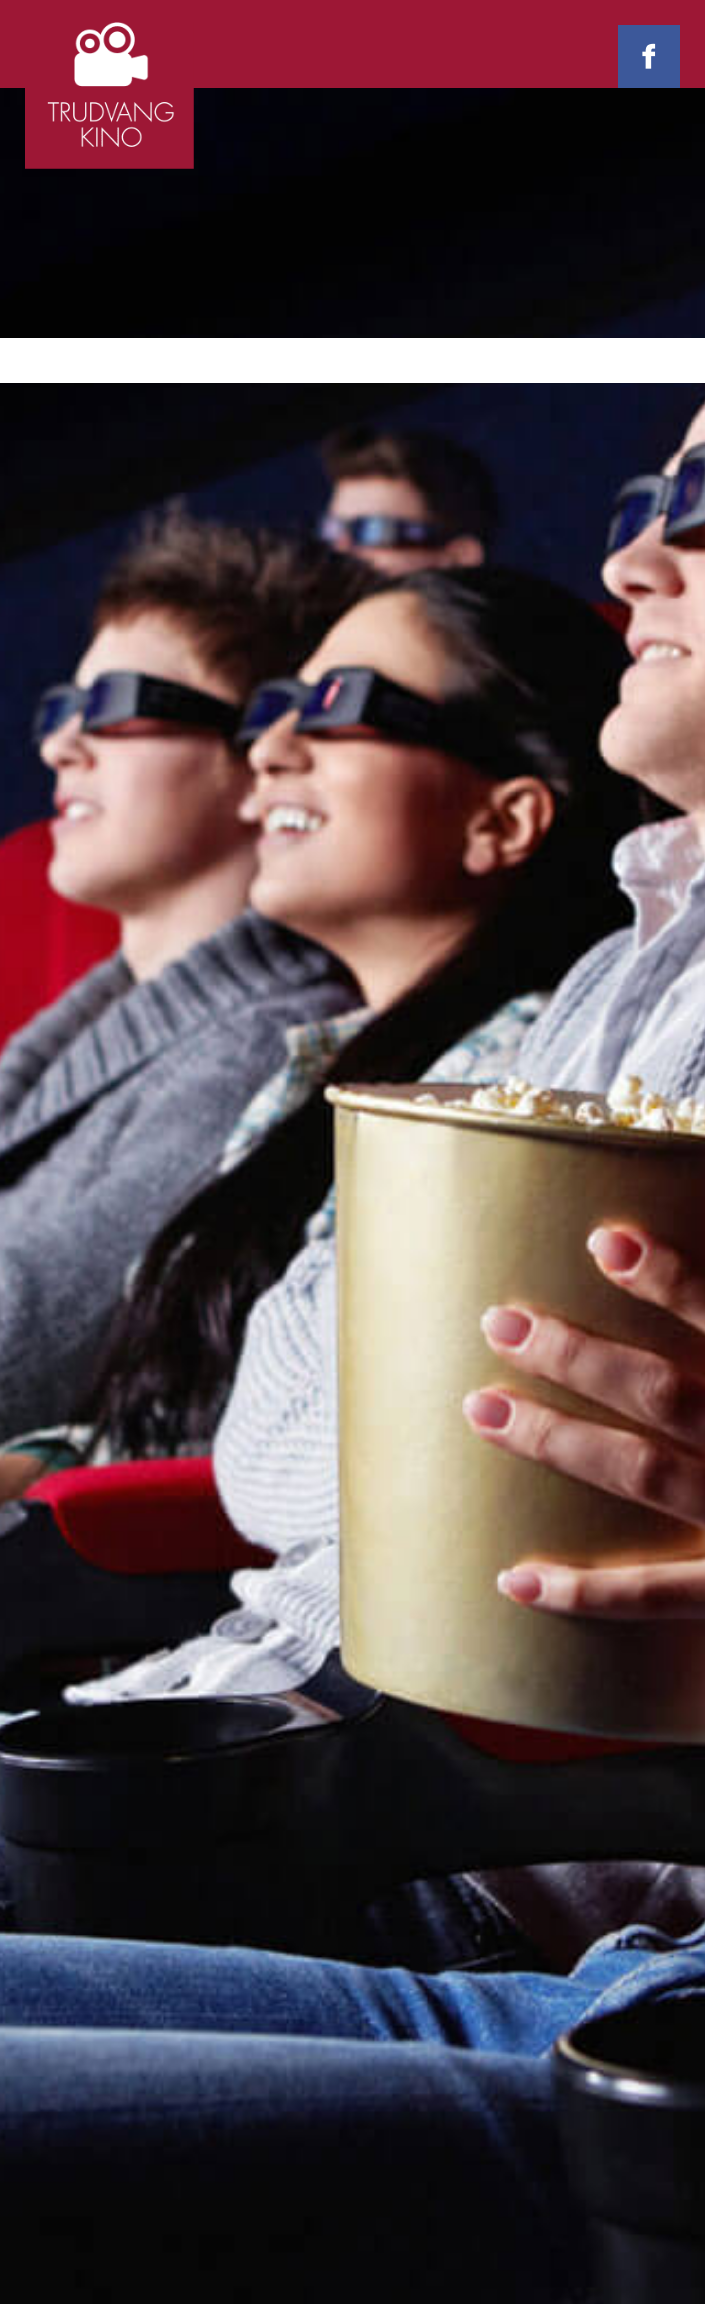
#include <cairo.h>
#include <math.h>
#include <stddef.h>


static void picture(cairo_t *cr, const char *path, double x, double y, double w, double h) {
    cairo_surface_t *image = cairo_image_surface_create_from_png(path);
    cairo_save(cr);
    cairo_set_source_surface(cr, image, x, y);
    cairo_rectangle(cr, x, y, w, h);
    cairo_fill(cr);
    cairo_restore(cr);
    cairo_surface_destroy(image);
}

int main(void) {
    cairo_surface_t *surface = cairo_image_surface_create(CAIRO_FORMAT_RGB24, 705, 2304);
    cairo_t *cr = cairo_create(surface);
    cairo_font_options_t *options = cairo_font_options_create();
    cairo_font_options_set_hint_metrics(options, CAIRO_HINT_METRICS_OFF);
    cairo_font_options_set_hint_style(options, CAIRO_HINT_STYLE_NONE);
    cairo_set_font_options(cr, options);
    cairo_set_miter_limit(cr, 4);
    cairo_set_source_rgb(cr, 1, 1, 1);
    cairo_paint(cr);
    picture(cr, "img1.png", 0, 88, 705, 2216);
    cairo_set_source_rgb(cr, 0.616, 0.09, 0.208);
    cairo_rectangle(cr, 0, 0, 705, 88);
    cairo_fill(cr);
    picture(cr, "img2.png", 25, 22, 169, 147);
    cairo_set_source_rgb(cr, 0.235, 0.345, 0.604);
    cairo_rectangle(cr, 618, 25, 62, 63);
    cairo_fill(cr);
    picture(cr, "img3.png", 642, 43, 14, 26);
    cairo_set_source_rgb(cr, 1, 1, 1);
    cairo_rectangle(cr, 0, 338, 705, 45);
    cairo_fill(cr);
    cairo_surface_write_to_png(surface, "page.png");
    cairo_font_options_destroy(options);
    cairo_destroy(cr);
    cairo_surface_destroy(surface);
    return 0;
}
